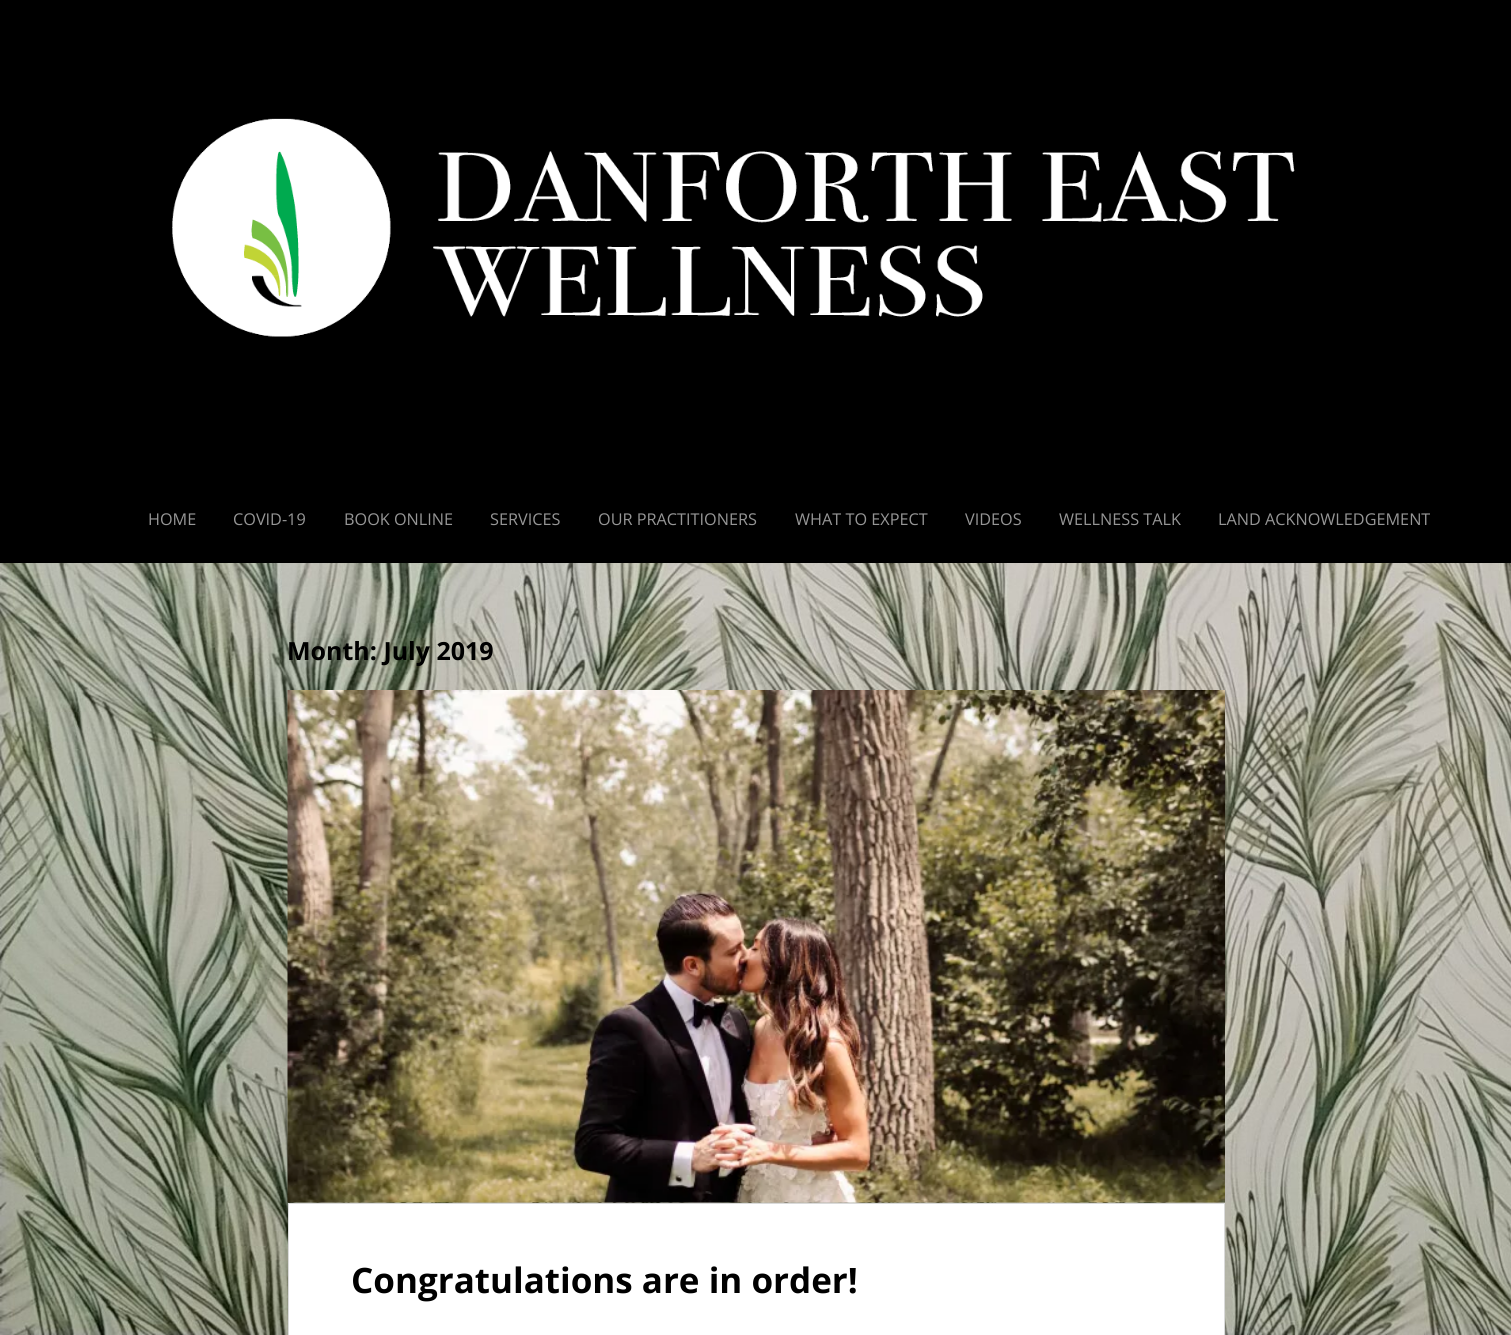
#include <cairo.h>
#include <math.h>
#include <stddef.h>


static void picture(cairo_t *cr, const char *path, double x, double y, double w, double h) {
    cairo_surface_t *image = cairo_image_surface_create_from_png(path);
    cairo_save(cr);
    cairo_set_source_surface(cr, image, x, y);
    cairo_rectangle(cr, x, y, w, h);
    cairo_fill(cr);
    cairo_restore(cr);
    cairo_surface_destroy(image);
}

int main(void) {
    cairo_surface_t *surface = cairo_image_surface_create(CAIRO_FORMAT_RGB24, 1511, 1335);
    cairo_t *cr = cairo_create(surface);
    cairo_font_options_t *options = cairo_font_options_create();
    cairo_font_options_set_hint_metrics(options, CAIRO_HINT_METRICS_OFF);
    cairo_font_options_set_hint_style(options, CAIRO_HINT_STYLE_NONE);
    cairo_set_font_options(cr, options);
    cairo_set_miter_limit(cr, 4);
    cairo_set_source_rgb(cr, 1, 1, 1);
    cairo_paint(cr);
    picture(cr, "img1.png", 0, 563, 1511, 772);
    cairo_set_source_rgb(cr, 0, 0, 0);
    cairo_rectangle(cr, 0, 0, 1511, 563);
    cairo_fill(cr);
    picture(cr, "img2.png", 172, 118, 1123, 219);
    cairo_select_font_face(cr, "Open Sans", CAIRO_FONT_SLANT_NORMAL, CAIRO_FONT_WEIGHT_NORMAL);
    cairo_set_font_size(cr, 16.25);
    cairo_set_source_rgb(cr, 0.588, 0.588, 0.588);
    cairo_move_to(cr, 148, 525);
    cairo_show_text(cr, "HOME");
    cairo_move_to(cr, 233, 525);
    cairo_show_text(cr, "COVID-19");
    cairo_move_to(cr, 344, 525);
    cairo_show_text(cr, "BOOK ONLINE");
    cairo_move_to(cr, 490, 525);
    cairo_show_text(cr, "SERVICES");
    cairo_move_to(cr, 598, 525);
    cairo_show_text(cr, "OUR PRACTITIONERS");
    cairo_move_to(cr, 795, 525);
    cairo_show_text(cr, "WHAT TO EXPECT");
    cairo_move_to(cr, 965, 525);
    cairo_show_text(cr, "VIDEOS");
    cairo_move_to(cr, 1059, 525);
    cairo_show_text(cr, "WELLNESS TALK");
    cairo_move_to(cr, 1218, 525);
    cairo_show_text(cr, "LAND ACKNOWLEDGEMENT");
    cairo_select_font_face(cr, "Open Sans", CAIRO_FONT_SLANT_NORMAL, CAIRO_FONT_WEIGHT_BOLD);
    cairo_set_font_size(cr, 25);
    cairo_set_source_rgb(cr, 0, 0, 0);
    cairo_move_to(cr, 287, 660);
    cairo_show_text(cr, "Month: July 2019");
    picture(cr, "img3.png", 287, 690, 938, 513);
    cairo_set_source_rgb(cr, 1, 1, 1);
    cairo_rectangle(cr, 288.5, 1203.5, 936, 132);
    cairo_fill_preserve(cr);
    cairo_set_source_rgb(cr, 0.855, 0.855, 0.855);
    cairo_set_line_width(cr, 1);
    cairo_stroke(cr);
    cairo_set_font_size(cr, 35);
    cairo_set_source_rgb(cr, 0, 0, 0);
    cairo_move_to(cr, 351, 1293);
    cairo_show_text(cr, "Congratulations are in order!");
    cairo_surface_write_to_png(surface, "page.png");
    cairo_font_options_destroy(options);
    cairo_destroy(cr);
    cairo_surface_destroy(surface);
    return 0;
}
